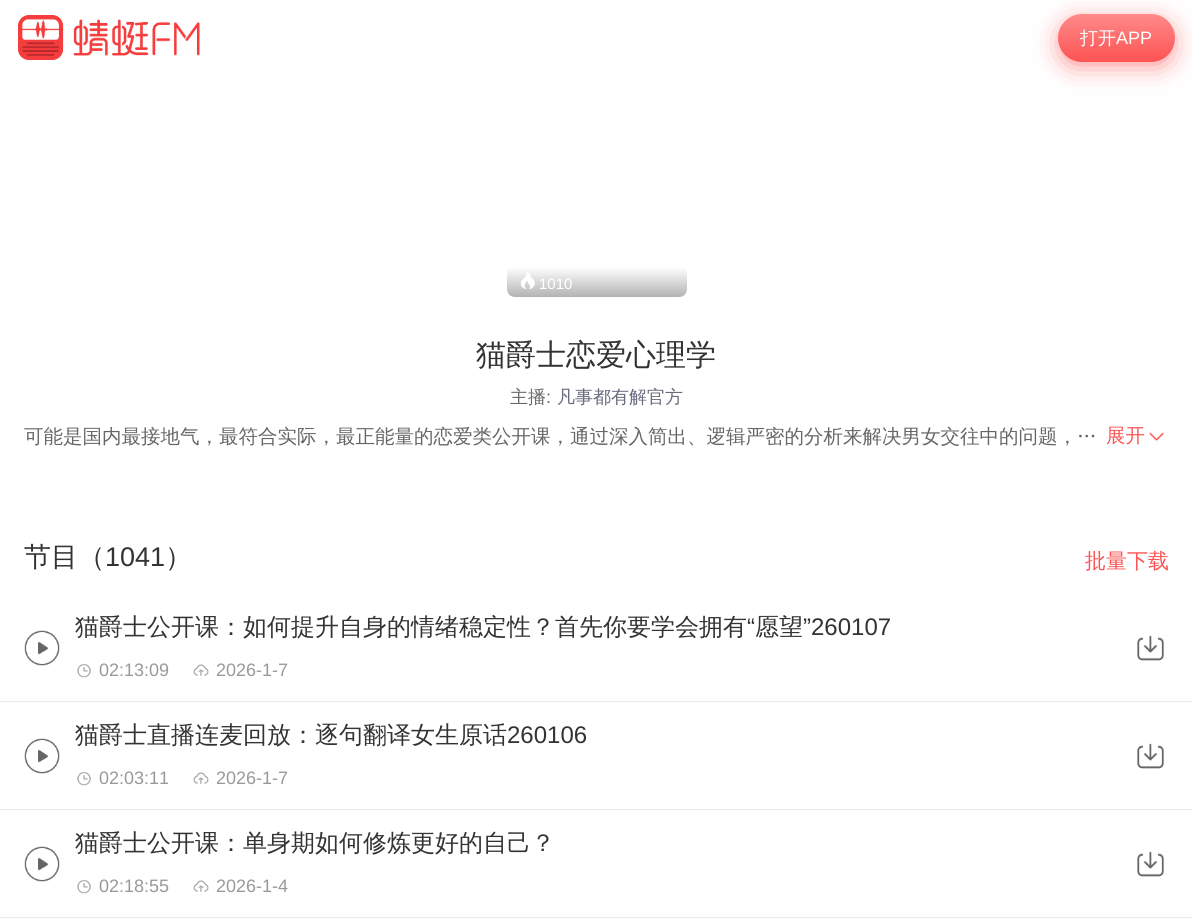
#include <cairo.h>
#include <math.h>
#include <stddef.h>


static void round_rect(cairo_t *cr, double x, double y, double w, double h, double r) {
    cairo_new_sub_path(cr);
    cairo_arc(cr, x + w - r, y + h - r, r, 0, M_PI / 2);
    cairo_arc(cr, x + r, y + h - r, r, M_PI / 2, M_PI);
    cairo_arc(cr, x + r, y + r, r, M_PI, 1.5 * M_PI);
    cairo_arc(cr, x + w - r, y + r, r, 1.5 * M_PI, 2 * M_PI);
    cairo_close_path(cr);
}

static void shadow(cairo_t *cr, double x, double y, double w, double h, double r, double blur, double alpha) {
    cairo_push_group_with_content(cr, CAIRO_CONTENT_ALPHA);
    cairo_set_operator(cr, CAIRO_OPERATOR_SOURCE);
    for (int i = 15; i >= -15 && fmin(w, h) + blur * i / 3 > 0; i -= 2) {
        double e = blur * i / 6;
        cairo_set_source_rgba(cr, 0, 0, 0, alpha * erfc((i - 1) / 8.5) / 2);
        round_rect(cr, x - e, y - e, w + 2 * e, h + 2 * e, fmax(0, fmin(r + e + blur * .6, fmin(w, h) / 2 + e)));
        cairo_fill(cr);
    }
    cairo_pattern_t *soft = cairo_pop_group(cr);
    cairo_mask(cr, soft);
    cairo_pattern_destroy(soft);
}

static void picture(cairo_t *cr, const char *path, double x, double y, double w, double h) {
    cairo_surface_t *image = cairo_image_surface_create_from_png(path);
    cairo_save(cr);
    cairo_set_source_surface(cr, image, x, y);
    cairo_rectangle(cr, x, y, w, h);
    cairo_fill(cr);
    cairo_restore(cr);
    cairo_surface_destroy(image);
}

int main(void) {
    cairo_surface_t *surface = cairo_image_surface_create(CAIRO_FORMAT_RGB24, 1192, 919);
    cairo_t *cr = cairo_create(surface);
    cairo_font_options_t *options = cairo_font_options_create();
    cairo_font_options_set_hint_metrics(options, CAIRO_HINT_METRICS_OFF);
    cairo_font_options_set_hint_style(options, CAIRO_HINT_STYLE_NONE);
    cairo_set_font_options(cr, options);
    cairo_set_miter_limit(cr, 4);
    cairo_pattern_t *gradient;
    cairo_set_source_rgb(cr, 1, 1, 1);
    cairo_paint(cr);
    picture(cr, "img1.png", 18, 15, 182, 45);
    cairo_set_source_rgb(cr, 0.992, 0.325, 0.325);
    shadow(cr, 1067, 29, 99, 30, 15, 15, 1);
    gradient = cairo_pattern_create_linear(1116, 13, 1116, 62);
    cairo_pattern_add_color_stop_rgba(gradient, 0, 1, 0.545, 0.545, 1);
    cairo_pattern_add_color_stop_rgba(gradient, 1, 0.992, 0.325, 0.325, 1);
    cairo_set_source(cr, gradient);
    cairo_pattern_destroy(gradient);
    round_rect(cr, 1058, 14, 117, 48, 24);
    cairo_fill(cr);
    cairo_select_font_face(cr, "WenQuanYi Zen Hei Medium", CAIRO_FONT_SLANT_NORMAL, CAIRO_FONT_WEIGHT_NORMAL);
    cairo_set_font_size(cr, 18);
    cairo_set_source_rgb(cr, 1, 1, 1);
    cairo_move_to(cr, 1080, 44);
    cairo_show_text(cr, "打开");
    cairo_select_font_face(cr, "Liberation Sans", CAIRO_FONT_SLANT_NORMAL, CAIRO_FONT_WEIGHT_NORMAL);
    cairo_move_to(cr, 1116, 44);
    cairo_show_text(cr, "APP");
    gradient = cairo_pattern_create_linear(597, 267, 597, 297);
    cairo_pattern_add_color_stop_rgba(gradient, 0, 1, 1, 1, 1);
    cairo_pattern_add_color_stop_rgba(gradient, 1, 0.702, 0.702, 0.702, 1);
    cairo_set_source(cr, gradient);
    cairo_pattern_destroy(gradient);
    cairo_new_path(cr);
    cairo_move_to(cr, 507, 267);
    cairo_line_to(cr, 687, 267);
    cairo_line_to(cr, 687, 289);
    cairo_curve_to(cr, 687, 293.5, 683.5, 297, 679, 297);
    cairo_line_to(cr, 515, 297);
    cairo_curve_to(cr, 510.5, 297, 507, 293.5, 507, 289);
    cairo_close_path(cr);
    cairo_fill(cr);
    picture(cr, "img2.png", 520, 272, 15, 18);
    cairo_set_font_size(cr, 15);
    cairo_set_source_rgb(cr, 1, 1, 1);
    cairo_move_to(cr, 539, 289);
    cairo_show_text(cr, "1010");
    cairo_select_font_face(cr, "WenQuanYi Zen Hei Medium", CAIRO_FONT_SLANT_NORMAL, CAIRO_FONT_WEIGHT_NORMAL);
    cairo_set_font_size(cr, 30);
    cairo_set_source_rgb(cr, 0.2, 0.2, 0.2);
    cairo_move_to(cr, 476, 365);
    cairo_show_text(cr, "猫爵士恋爱心理学");
    cairo_set_font_size(cr, 18);
    cairo_set_source_rgb(cr, 0.4, 0.4, 0.4);
    cairo_move_to(cr, 510, 403);
    cairo_show_text(cr, "主播");
    cairo_select_font_face(cr, "Liberation Sans", CAIRO_FONT_SLANT_NORMAL, CAIRO_FONT_WEIGHT_NORMAL);
    cairo_move_to(cr, 546, 403);
    cairo_show_text(cr, ":");
    cairo_select_font_face(cr, "WenQuanYi Zen Hei Medium", CAIRO_FONT_SLANT_NORMAL, CAIRO_FONT_WEIGHT_NORMAL);
    cairo_set_source_rgb(cr, 0.404, 0.42, 0.482);
    cairo_move_to(cr, 557, 403);
    cairo_show_text(cr, "凡事都有解官方");
    cairo_set_font_size(cr, 19.5);
    cairo_set_source_rgb(cr, 0.4, 0.4, 0.4);
    cairo_move_to(cr, 24, 443);
    cairo_show_text(cr, "可能是国内最接地气，最符合实际，最正能量的恋爱类公开课，通过深入简出、逻辑严密的分析来解决男女交往中的问题，…");
    cairo_set_source_rgb(cr, 0.992, 0.325, 0.325);
    cairo_move_to(cr, 1106, 442);
    cairo_show_text(cr, "展开");
    picture(cr, "img3.png", 1149, 432, 15, 9);
    cairo_set_font_size(cr, 27);
    cairo_set_source_rgb(cr, 0.2, 0.2, 0.2);
    cairo_move_to(cr, 24, 566);
    cairo_show_text(cr, "节目（");
    cairo_select_font_face(cr, "Liberation Sans", CAIRO_FONT_SLANT_NORMAL, CAIRO_FONT_WEIGHT_NORMAL);
    cairo_move_to(cr, 105, 566);
    cairo_show_text(cr, "1041");
    cairo_select_font_face(cr, "WenQuanYi Zen Hei Medium", CAIRO_FONT_SLANT_NORMAL, CAIRO_FONT_WEIGHT_NORMAL);
    cairo_move_to(cr, 165, 566);
    cairo_show_text(cr, "）");
    cairo_set_font_size(cr, 21);
    cairo_set_source_rgb(cr, 0.992, 0.325, 0.325);
    cairo_move_to(cr, 1085, 568);
    cairo_show_text(cr, "批量下载");
    cairo_set_source_rgb(cr, 0.918, 0.918, 0.918);
    cairo_new_path(cr);
    cairo_move_to(cr, 0, 700);
    cairo_line_to(cr, 0, 702);
    cairo_line_to(cr, 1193, 702);
    cairo_line_to(cr, 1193, 596);
    cairo_line_to(cr, 1192, 596);
    cairo_line_to(cr, 1192, 700);
    cairo_close_path(cr);
    cairo_fill(cr);
    cairo_set_source_rgb(cr, 1, 1, 1);
    cairo_rectangle(cr, 0, 700, 1192, 1);
    cairo_fill(cr);
    picture(cr, "img4.png", 24, 630, 36, 36);
    cairo_set_font_size(cr, 24);
    cairo_set_source_rgb(cr, 0.2, 0.2, 0.2);
    cairo_move_to(cr, 75, 635);
    cairo_show_text(cr, "猫爵士公开课：如何提升自身的情绪稳定性？首先你要学会拥有");
    cairo_select_font_face(cr, "Liberation Sans", CAIRO_FONT_SLANT_NORMAL, CAIRO_FONT_WEIGHT_NORMAL);
    cairo_move_to(cr, 747, 635);
    cairo_show_text(cr, "“");
    cairo_select_font_face(cr, "WenQuanYi Zen Hei Medium", CAIRO_FONT_SLANT_NORMAL, CAIRO_FONT_WEIGHT_NORMAL);
    cairo_move_to(cr, 755, 635);
    cairo_show_text(cr, "愿望");
    cairo_select_font_face(cr, "Liberation Sans", CAIRO_FONT_SLANT_NORMAL, CAIRO_FONT_WEIGHT_NORMAL);
    cairo_move_to(cr, 803, 635);
    cairo_show_text(cr, "”260107");
    picture(cr, "img5.png", 77, 663, 14, 15);
    cairo_set_font_size(cr, 18);
    cairo_set_source_rgb(cr, 0.6, 0.6, 0.6);
    cairo_move_to(cr, 99, 676);
    cairo_show_text(cr, "02:13:09");
    picture(cr, "img6.png", 193, 664, 16, 12);
    cairo_move_to(cr, 216, 676);
    cairo_show_text(cr, "2026-1-7");
    picture(cr, "img7.png", 1137, 635, 27, 26);
    cairo_set_source_rgb(cr, 0.918, 0.918, 0.918);
    cairo_new_path(cr);
    cairo_move_to(cr, 0, 808);
    cairo_line_to(cr, 0, 810);
    cairo_line_to(cr, 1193, 810);
    cairo_line_to(cr, 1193, 704);
    cairo_line_to(cr, 1192, 704);
    cairo_line_to(cr, 1192, 808);
    cairo_close_path(cr);
    cairo_fill(cr);
    cairo_set_source_rgb(cr, 1, 1, 1);
    cairo_rectangle(cr, 0, 808, 1192, 1);
    cairo_fill(cr);
    picture(cr, "img8.png", 24, 738, 36, 36);
    cairo_select_font_face(cr, "WenQuanYi Zen Hei Medium", CAIRO_FONT_SLANT_NORMAL, CAIRO_FONT_WEIGHT_NORMAL);
    cairo_set_font_size(cr, 24);
    cairo_set_source_rgb(cr, 0.2, 0.2, 0.2);
    cairo_move_to(cr, 75, 743);
    cairo_show_text(cr, "猫爵士直播连麦回放：逐句翻译女生原话");
    cairo_select_font_face(cr, "Liberation Sans", CAIRO_FONT_SLANT_NORMAL, CAIRO_FONT_WEIGHT_NORMAL);
    cairo_move_to(cr, 507, 743);
    cairo_show_text(cr, "260106");
    picture(cr, "img5.png", 77, 771, 14, 15);
    cairo_set_font_size(cr, 18);
    cairo_set_source_rgb(cr, 0.6, 0.6, 0.6);
    cairo_move_to(cr, 99, 784);
    cairo_show_text(cr, "02:03:11");
    picture(cr, "img6.png", 193, 772, 16, 12);
    cairo_move_to(cr, 216, 784);
    cairo_show_text(cr, "2026-1-7");
    picture(cr, "img7.png", 1137, 743, 27, 26);
    cairo_set_source_rgb(cr, 0.918, 0.918, 0.918);
    cairo_new_path(cr);
    cairo_move_to(cr, 0, 916);
    cairo_line_to(cr, 0, 918);
    cairo_line_to(cr, 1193, 918);
    cairo_line_to(cr, 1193, 812);
    cairo_line_to(cr, 1192, 812);
    cairo_line_to(cr, 1192, 916);
    cairo_close_path(cr);
    cairo_fill(cr);
    cairo_set_source_rgb(cr, 1, 1, 1);
    cairo_rectangle(cr, 0, 916, 1192, 1);
    cairo_fill(cr);
    picture(cr, "img4.png", 24, 846, 36, 36);
    cairo_select_font_face(cr, "WenQuanYi Zen Hei Medium", CAIRO_FONT_SLANT_NORMAL, CAIRO_FONT_WEIGHT_NORMAL);
    cairo_set_font_size(cr, 24);
    cairo_set_source_rgb(cr, 0.2, 0.2, 0.2);
    cairo_move_to(cr, 75, 851);
    cairo_show_text(cr, "猫爵士公开课：单身期如何修炼更好的自己？");
    picture(cr, "img5.png", 77, 879, 14, 15);
    cairo_select_font_face(cr, "Liberation Sans", CAIRO_FONT_SLANT_NORMAL, CAIRO_FONT_WEIGHT_NORMAL);
    cairo_set_font_size(cr, 18);
    cairo_set_source_rgb(cr, 0.6, 0.6, 0.6);
    cairo_move_to(cr, 99, 892);
    cairo_show_text(cr, "02:18:55");
    picture(cr, "img6.png", 193, 880, 16, 12);
    cairo_move_to(cr, 216, 892);
    cairo_show_text(cr, "2026-1-4");
    picture(cr, "img7.png", 1137, 851, 27, 26);
    cairo_surface_write_to_png(surface, "page.png");
    cairo_font_options_destroy(options);
    cairo_destroy(cr);
    cairo_surface_destroy(surface);
    return 0;
}
